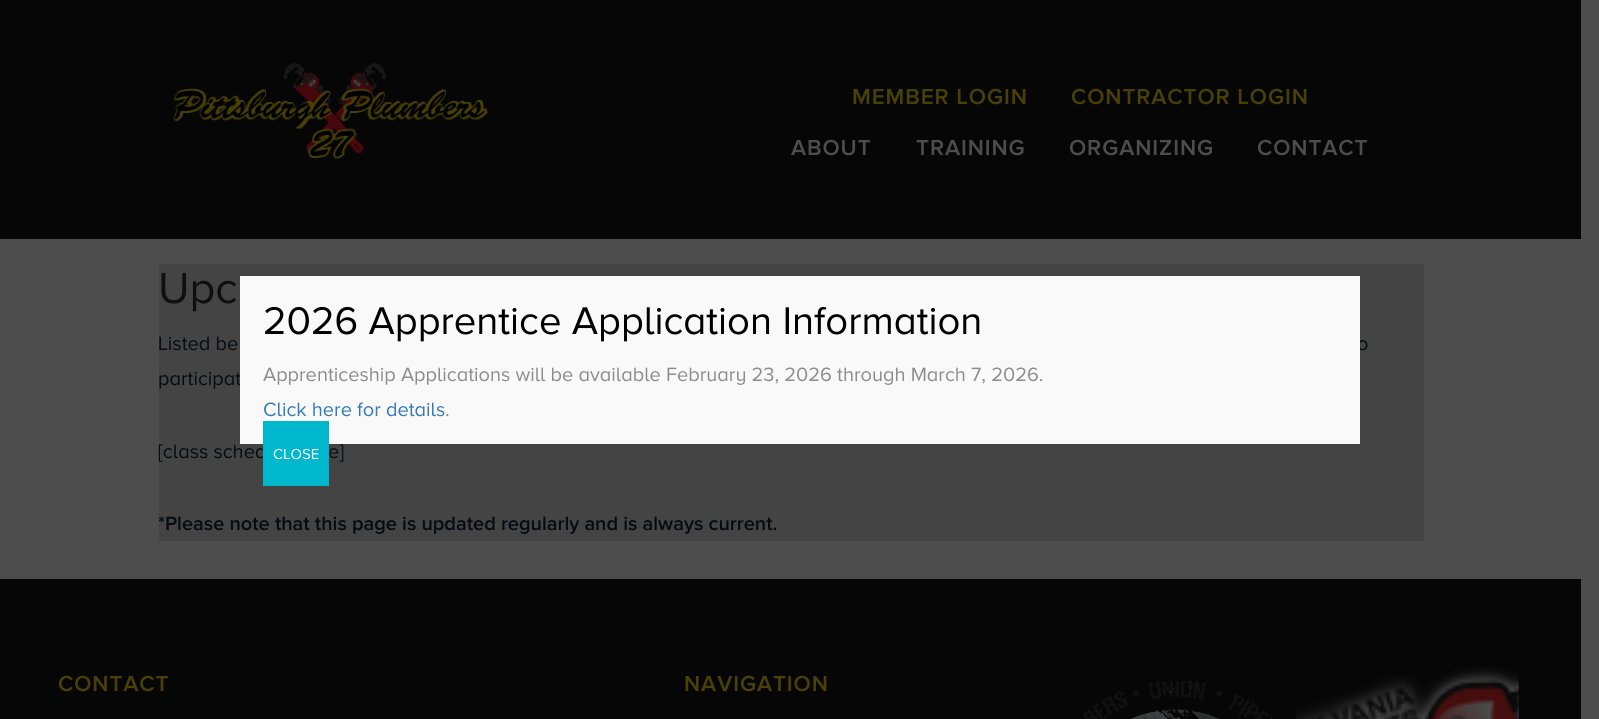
#include <cairo.h>
#include <math.h>
#include <stddef.h>


static void spaced_text(cairo_t *cr, double x, double y, const char *s, double letter, double word) {
    cairo_move_to(cr, x, y);
    while (*s) {
        char ch[5] = {0};
        int n = 0;
        do ch[n++] = *s++; while ((*s & 0xC0) == 0x80);
        cairo_show_text(cr, ch);
        cairo_rel_move_to(cr, letter + word * (*ch == ' '), 0);
    }
}

static void picture(cairo_t *cr, const char *path, double x, double y, double w, double h) {
    cairo_surface_t *image = cairo_image_surface_create_from_png(path);
    cairo_save(cr);
    cairo_set_source_surface(cr, image, x, y);
    cairo_rectangle(cr, x, y, w, h);
    cairo_fill(cr);
    cairo_restore(cr);
    cairo_surface_destroy(image);
}

int main(void) {
    cairo_surface_t *surface = cairo_image_surface_create(CAIRO_FORMAT_RGB24, 1599, 719);
    cairo_t *cr = cairo_create(surface);
    cairo_font_options_t *options = cairo_font_options_create();
    cairo_font_options_set_hint_metrics(options, CAIRO_HINT_METRICS_OFF);
    cairo_font_options_set_hint_style(options, CAIRO_HINT_STYLE_NONE);
    cairo_set_font_options(cr, options);
    cairo_set_miter_limit(cr, 4);
    cairo_set_source_rgb(cr, 0.302, 0.302, 0.302);
    cairo_paint(cr);
    cairo_set_source_rgb(cr, 0.024, 0.024, 0.024);
    cairo_rectangle(cr, 0, 0, 1581, 239);
    cairo_fill(cr);
    picture(cr, "img1.png", 173, 62, 315, 97);
    cairo_select_font_face(cr, "Proxima Nova SemiBold", CAIRO_FONT_SLANT_NORMAL, CAIRO_FONT_WEIGHT_NORMAL);
    cairo_set_font_size(cr, 22.5);
    cairo_set_source_rgb(cr, 0.282, 0.251, 0.02);
    spaced_text(cr, 852, 104, "MEMBER LOGIN", 0.9, 0);
    spaced_text(cr, 1071, 104, "CONTRACTOR LOGIN", 0.9, 0);
    cairo_set_source_rgb(cr, 0.302, 0.302, 0.302);
    spaced_text(cr, 791, 155, "ABOUT", 0.9, 0);
    spaced_text(cr, 916, 155, "TRAINING", 0.9, 0);
    spaced_text(cr, 1069, 155, "ORGANIZING", 0.9, 0);
    spaced_text(cr, 1257, 155, "CONTACT", 0.9, 0);
    cairo_set_source_rgb(cr, 0.267, 0.267, 0.267);
    cairo_rectangle(cr, 159, 264, 1265, 277);
    cairo_fill(cr);
    cairo_select_font_face(cr, "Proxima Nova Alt", CAIRO_FONT_SLANT_NORMAL, CAIRO_FONT_WEIGHT_NORMAL);
    cairo_set_font_size(cr, 45);
    cairo_set_source_rgb(cr, 0.059, 0.059, 0.059);
    cairo_move_to(cr, 158, 303);
    cairo_show_text(cr, "Upc");
    cairo_set_font_size(cr, 20);
    cairo_set_source_rgb(cr, 0.02, 0.043, 0.067);
    cairo_move_to(cr, 158, 350);
    cairo_show_text(cr, "Listed be");
    cairo_move_to(cr, 1357, 350);
    cairo_show_text(cr, "o");
    cairo_move_to(cr, 158, 385);
    cairo_show_text(cr, "participat");
    cairo_move_to(cr, 158, 458);
    cairo_show_text(cr, "[class sched");
    cairo_move_to(cr, 328, 458);
    cairo_show_text(cr, "e]");
    cairo_select_font_face(cr, "Proxima Nova SemiBold", CAIRO_FONT_SLANT_NORMAL, CAIRO_FONT_WEIGHT_NORMAL);
    cairo_move_to(cr, 158, 530);
    cairo_show_text(cr, "*Please note that this page is updated regularly and is always current.");
    cairo_set_source_rgb(cr, 0.024, 0.024, 0.024);
    cairo_rectangle(cr, 0, 579, 1581, 140);
    cairo_fill(cr);
    cairo_set_font_size(cr, 22.5);
    cairo_set_source_rgb(cr, 0.282, 0.251, 0.02);
    spaced_text(cr, 58, 691, "CONTACT", 0.9, 0);
    spaced_text(cr, 684, 691, "NAVIGATION", 0.9, 0);
    picture(cr, "img2.png", 1078, 681, 195, 38);
    picture(cr, "img3.png", 1296, 667, 223, 52);
    cairo_set_source_rgb(cr, 0.976, 0.976, 0.976);
    cairo_rectangle(cr, 240, 276, 1120, 168);
    cairo_fill(cr);
    cairo_select_font_face(cr, "Proxima Nova Alt", CAIRO_FONT_SLANT_NORMAL, CAIRO_FONT_WEIGHT_NORMAL);
    cairo_set_font_size(cr, 40);
    cairo_set_source_rgb(cr, 0, 0, 0);
    cairo_move_to(cr, 263, 334);
    cairo_show_text(cr, "2026 Apprentice Application Information");
    cairo_set_font_size(cr, 20);
    cairo_set_source_rgb(cr, 0.549, 0.549, 0.549);
    cairo_move_to(cr, 263, 381);
    cairo_show_text(cr, "Apprenticeship Applications will be available February 23, 2026 through March 7, 2026.");
    cairo_set_source_rgb(cr, 0.2, 0.478, 0.718);
    cairo_move_to(cr, 263, 416);
    cairo_show_text(cr, "Click here for details");
    cairo_set_source_rgb(cr, 0.549, 0.549, 0.549);
    cairo_move_to(cr, 445, 416);
    cairo_show_text(cr, ".");
    cairo_set_source_rgb(cr, 0, 0.718, 0.804);
    cairo_rectangle(cr, 263, 421, 66, 65);
    cairo_fill(cr);
    cairo_set_font_size(cr, 15);
    cairo_set_source_rgb(cr, 1, 1, 1);
    cairo_move_to(cr, 273, 459);
    cairo_show_text(cr, "CLOSE");
    cairo_surface_write_to_png(surface, "page.png");
    cairo_font_options_destroy(options);
    cairo_destroy(cr);
    cairo_surface_destroy(surface);
    return 0;
}
